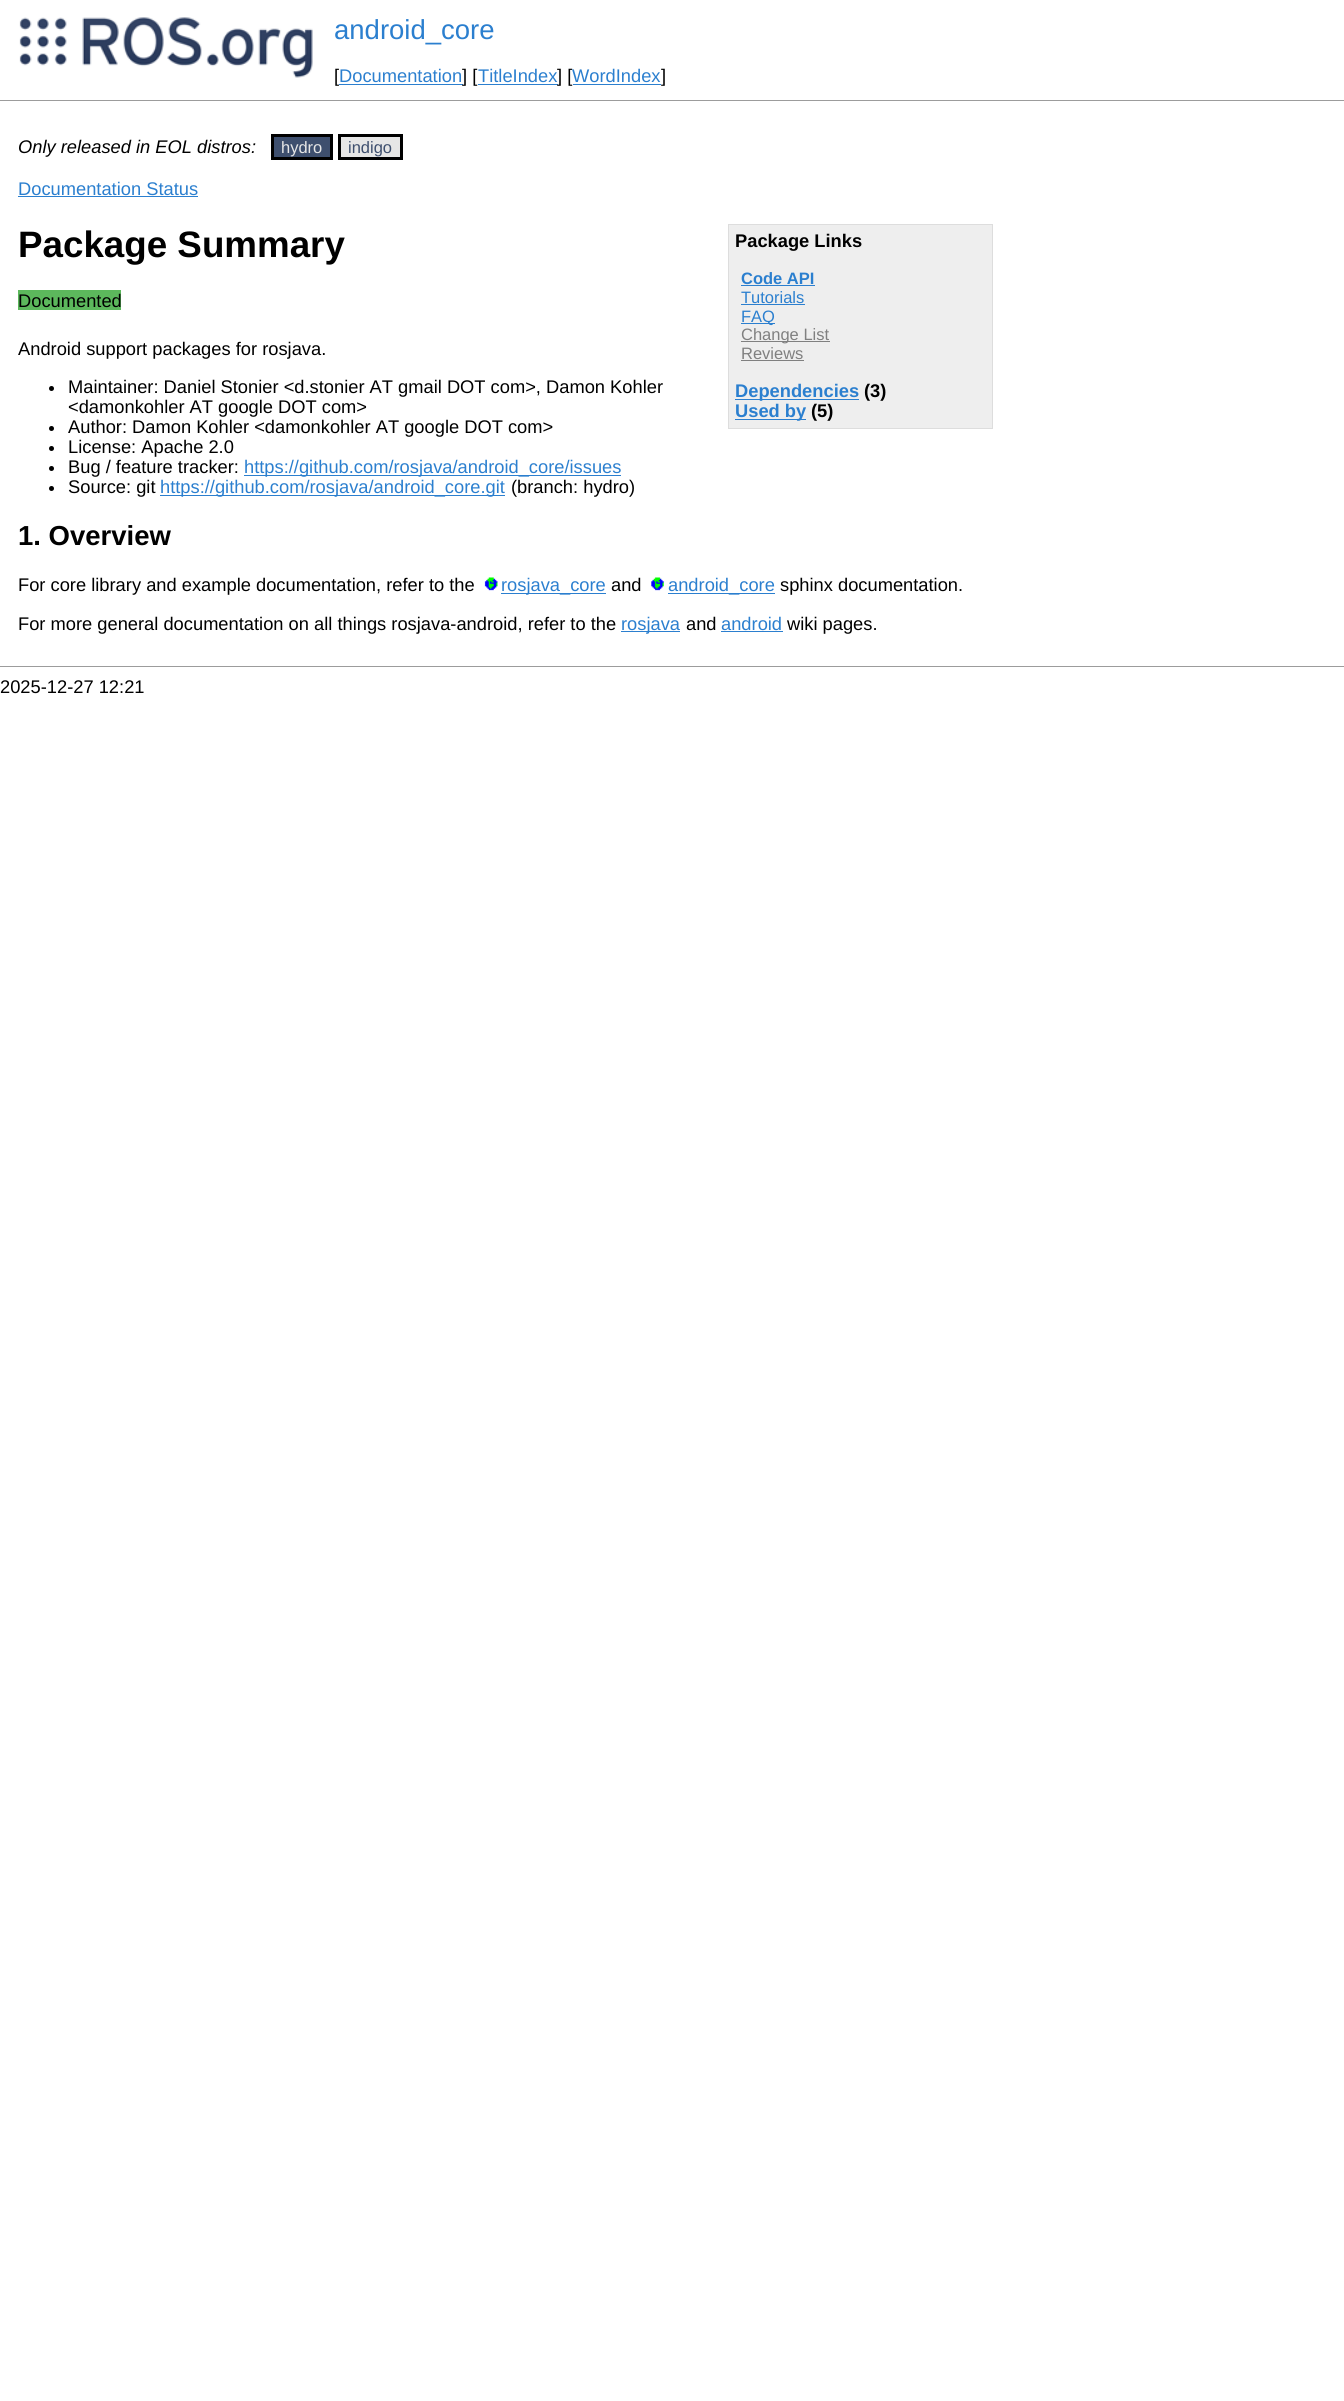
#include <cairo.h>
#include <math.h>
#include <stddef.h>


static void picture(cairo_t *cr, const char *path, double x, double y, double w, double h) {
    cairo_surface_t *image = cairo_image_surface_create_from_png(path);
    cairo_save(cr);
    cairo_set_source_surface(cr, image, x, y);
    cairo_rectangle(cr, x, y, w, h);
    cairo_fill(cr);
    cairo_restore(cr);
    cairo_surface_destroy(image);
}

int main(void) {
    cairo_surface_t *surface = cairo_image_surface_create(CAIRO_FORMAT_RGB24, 1344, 2401);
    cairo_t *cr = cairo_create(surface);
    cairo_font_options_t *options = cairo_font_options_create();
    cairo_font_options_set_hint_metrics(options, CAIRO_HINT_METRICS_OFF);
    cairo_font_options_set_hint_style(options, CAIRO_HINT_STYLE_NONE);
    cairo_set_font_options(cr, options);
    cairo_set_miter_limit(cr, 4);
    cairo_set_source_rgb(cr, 1, 1, 1);
    cairo_paint(cr);
    picture(cr, "img1.png", 19, 17, 294, 61);
    cairo_select_font_face(cr, "Liberation Sans", CAIRO_FONT_SLANT_NORMAL, CAIRO_FONT_WEIGHT_NORMAL);
    cairo_set_font_size(cr, 27.5);
    cairo_set_source_rgb(cr, 0.169, 0.498, 0.812);
    cairo_move_to(cr, 334, 39);
    cairo_show_text(cr, "android_core");
    cairo_set_font_size(cr, 18.3);
    cairo_set_source_rgb(cr, 0, 0, 0);
    cairo_move_to(cr, 334, 82);
    cairo_show_text(cr, "[");
    cairo_set_source_rgb(cr, 0.169, 0.498, 0.812);
    cairo_move_to(cr, 339, 82);
    cairo_show_text(cr, "Documentation");
    cairo_rectangle(cr, 339, 84, 124, 1);
    cairo_fill(cr);
    cairo_set_source_rgb(cr, 0, 0, 0);
    cairo_move_to(cr, 462, 82);
    cairo_show_text(cr, "] [");
    cairo_set_source_rgb(cr, 0.169, 0.498, 0.812);
    cairo_move_to(cr, 478, 82);
    cairo_show_text(cr, "TitleIndex");
    cairo_rectangle(cr, 478, 84, 80, 1);
    cairo_fill(cr);
    cairo_set_source_rgb(cr, 0, 0, 0);
    cairo_move_to(cr, 557, 82);
    cairo_show_text(cr, "] [");
    cairo_set_source_rgb(cr, 0.169, 0.498, 0.812);
    cairo_move_to(cr, 572, 82);
    cairo_show_text(cr, "WordIndex");
    cairo_rectangle(cr, 573, 84, 88, 1);
    cairo_fill(cr);
    cairo_set_source_rgb(cr, 0, 0, 0);
    cairo_move_to(cr, 661, 82);
    cairo_show_text(cr, "]");
    cairo_set_source_rgb(cr, 0.612, 0.612, 0.612);
    cairo_rectangle(cr, 0, 100, 1344, 1);
    cairo_fill(cr);
    cairo_select_font_face(cr, "Liberation Sans", CAIRO_FONT_SLANT_ITALIC, CAIRO_FONT_WEIGHT_NORMAL);
    cairo_set_source_rgb(cr, 0, 0, 0);
    cairo_move_to(cr, 18, 153);
    cairo_show_text(cr, "Only released in EOL distros:");
    cairo_set_source_rgb(cr, 0.243, 0.31, 0.431);
    cairo_rectangle(cr, 272.5, 135.5, 59, 23);
    cairo_fill_preserve(cr);
    cairo_set_source_rgb(cr, 0, 0, 0);
    cairo_set_line_width(cr, 3);
    cairo_stroke(cr);
    cairo_select_font_face(cr, "Liberation Sans", CAIRO_FONT_SLANT_NORMAL, CAIRO_FONT_WEIGHT_NORMAL);
    cairo_set_font_size(cr, 16.5);
    cairo_set_source_rgb(cr, 0.902, 0.902, 0.902);
    cairo_move_to(cr, 281, 153);
    cairo_show_text(cr, "hydro");
    cairo_rectangle(cr, 339.5, 135.5, 62, 23);
    cairo_fill_preserve(cr);
    cairo_set_source_rgb(cr, 0, 0, 0);
    cairo_stroke(cr);
    cairo_set_source_rgb(cr, 0.243, 0.31, 0.431);
    cairo_move_to(cr, 348, 153);
    cairo_show_text(cr, "indigo");
    cairo_set_font_size(cr, 18.3);
    cairo_set_source_rgb(cr, 0.169, 0.498, 0.812);
    cairo_move_to(cr, 18, 195);
    cairo_show_text(cr, "Documentation Status");
    cairo_rectangle(cr, 18, 196, 180, 1);
    cairo_fill(cr);
    cairo_select_font_face(cr, "Liberation Sans", CAIRO_FONT_SLANT_NORMAL, CAIRO_FONT_WEIGHT_BOLD);
    cairo_set_font_size(cr, 36.75);
    cairo_set_source_rgb(cr, 0, 0, 0);
    cairo_move_to(cr, 18, 257);
    cairo_show_text(cr, "Package Summary");
    cairo_set_source_rgb(cr, 0.933, 0.933, 0.933);
    cairo_rectangle(cr, 728.5, 224.5, 264, 204);
    cairo_fill_preserve(cr);
    cairo_set_source_rgb(cr, 0.867, 0.867, 0.867);
    cairo_set_line_width(cr, 1);
    cairo_stroke(cr);
    cairo_set_font_size(cr, 18.3);
    cairo_set_source_rgb(cr, 0, 0, 0);
    cairo_move_to(cr, 735, 247);
    cairo_show_text(cr, "Package Links");
    cairo_set_font_size(cr, 16.5);
    cairo_set_source_rgb(cr, 0.169, 0.498, 0.812);
    cairo_move_to(cr, 741, 284);
    cairo_show_text(cr, "Code API");
    cairo_rectangle(cr, 741, 285, 74, 1);
    cairo_fill(cr);
    cairo_select_font_face(cr, "Liberation Sans", CAIRO_FONT_SLANT_NORMAL, CAIRO_FONT_WEIGHT_NORMAL);
    cairo_move_to(cr, 741, 303);
    cairo_show_text(cr, "Tutorials");
    cairo_rectangle(cr, 741, 304, 64, 1);
    cairo_fill(cr);
    cairo_rectangle(cr, 741, 323, 34, 1);
    cairo_fill(cr);
    cairo_move_to(cr, 741, 322);
    cairo_show_text(cr, "FAQ");
    cairo_set_source_rgb(cr, 0.502, 0.502, 0.502);
    cairo_rectangle(cr, 741, 341, 89, 1);
    cairo_fill(cr);
    cairo_move_to(cr, 741, 340);
    cairo_show_text(cr, "Change List");
    cairo_move_to(cr, 741, 359);
    cairo_show_text(cr, "Reviews");
    cairo_rectangle(cr, 741, 360, 63, 1);
    cairo_fill(cr);
    cairo_set_source_rgb(cr, 0.169, 0.498, 0.812);
    cairo_rectangle(cr, 735, 399, 124, 1);
    cairo_fill(cr);
    cairo_select_font_face(cr, "Liberation Sans", CAIRO_FONT_SLANT_NORMAL, CAIRO_FONT_WEIGHT_BOLD);
    cairo_set_font_size(cr, 18.3);
    cairo_move_to(cr, 735, 397);
    cairo_show_text(cr, "Dependencies");
    cairo_set_source_rgb(cr, 0, 0, 0);
    cairo_move_to(cr, 864, 397);
    cairo_show_text(cr, "(3)");
    cairo_set_source_rgb(cr, 0.169, 0.498, 0.812);
    cairo_rectangle(cr, 735, 419, 71, 1);
    cairo_fill(cr);
    cairo_move_to(cr, 735, 417);
    cairo_show_text(cr, "Used by");
    cairo_set_source_rgb(cr, 0, 0, 0);
    cairo_move_to(cr, 811, 417);
    cairo_show_text(cr, "(5)");
    cairo_set_source_rgb(cr, 0.361, 0.722, 0.361);
    cairo_rectangle(cr, 18, 290, 103, 20);
    cairo_fill(cr);
    cairo_select_font_face(cr, "Liberation Sans", CAIRO_FONT_SLANT_NORMAL, CAIRO_FONT_WEIGHT_NORMAL);
    cairo_set_source_rgb(cr, 0, 0, 0);
    cairo_move_to(cr, 18, 307);
    cairo_show_text(cr, "Documented");
    cairo_move_to(cr, 18, 355);
    cairo_show_text(cr, "Android support packages for rosjava.");
    cairo_new_path(cr);
    cairo_arc(cr, 51.5, 388.5, 2.5, 0, 2 * M_PI);
    cairo_fill(cr);
    cairo_move_to(cr, 68, 393);
    cairo_show_text(cr, "Maintainer: Daniel Stonier <d.stonier AT gmail DOT com>, Damon Kohler");
    cairo_move_to(cr, 68, 413);
    cairo_show_text(cr, "<damonkohler AT google DOT com>");
    cairo_new_path(cr);
    cairo_arc(cr, 51.5, 428.5, 2.5, 0, 2 * M_PI);
    cairo_fill(cr);
    cairo_move_to(cr, 68, 433);
    cairo_show_text(cr, "Author: Damon Kohler <damonkohler AT google DOT com>");
    cairo_new_path(cr);
    cairo_arc(cr, 51.5, 448.5, 2.5, 0, 2 * M_PI);
    cairo_fill(cr);
    cairo_move_to(cr, 68, 453);
    cairo_show_text(cr, "License: Apache 2.0");
    cairo_new_path(cr);
    cairo_arc(cr, 51.5, 468.5, 2.5, 0, 2 * M_PI);
    cairo_fill(cr);
    cairo_move_to(cr, 68, 473);
    cairo_show_text(cr, "Bug / feature tracker:");
    cairo_set_source_rgb(cr, 0.169, 0.498, 0.812);
    cairo_rectangle(cr, 244, 475, 377, 1);
    cairo_fill(cr);
    cairo_move_to(cr, 244, 473);
    cairo_show_text(cr, "https://github.com/rosjava/android_core/issues");
    cairo_set_source_rgb(cr, 0, 0, 0);
    cairo_new_path(cr);
    cairo_arc(cr, 51.5, 488.5, 2.5, 0, 2 * M_PI);
    cairo_fill(cr);
    cairo_move_to(cr, 68, 493);
    cairo_show_text(cr, "Source: git");
    cairo_set_source_rgb(cr, 0.169, 0.498, 0.812);
    cairo_rectangle(cr, 160, 495, 345, 1);
    cairo_fill(cr);
    cairo_move_to(cr, 160, 493);
    cairo_show_text(cr, "https://github.com/rosjava/android_core.git");
    cairo_set_source_rgb(cr, 0, 0, 0);
    cairo_move_to(cr, 511, 493);
    cairo_show_text(cr, "(branch: hydro)");
    cairo_select_font_face(cr, "Liberation Sans", CAIRO_FONT_SLANT_NORMAL, CAIRO_FONT_WEIGHT_BOLD);
    cairo_set_font_size(cr, 27.5);
    cairo_move_to(cr, 18, 545);
    cairo_show_text(cr, "1. Overview");
    cairo_select_font_face(cr, "Liberation Sans", CAIRO_FONT_SLANT_NORMAL, CAIRO_FONT_WEIGHT_NORMAL);
    cairo_set_font_size(cr, 18.3);
    cairo_move_to(cr, 18, 591);
    cairo_show_text(cr, "For core library and example documentation, refer to the");
    picture(cr, "img2.png", 484, 577, 14, 14);
    cairo_set_source_rgb(cr, 0.169, 0.498, 0.812);
    cairo_rectangle(cr, 501, 593, 105, 1);
    cairo_fill(cr);
    cairo_move_to(cr, 501, 591);
    cairo_show_text(cr, "rosjava_core");
    cairo_set_source_rgb(cr, 0, 0, 0);
    cairo_move_to(cr, 611, 591);
    cairo_show_text(cr, "and");
    picture(cr, "img3.png", 651, 577, 13, 14);
    cairo_set_source_rgb(cr, 0.169, 0.498, 0.812);
    cairo_rectangle(cr, 668, 593, 107, 1);
    cairo_fill(cr);
    cairo_move_to(cr, 668, 591);
    cairo_show_text(cr, "android_core");
    cairo_set_source_rgb(cr, 0, 0, 0);
    cairo_move_to(cr, 780, 591);
    cairo_show_text(cr, "sphinx documentation.");
    cairo_move_to(cr, 18, 630);
    cairo_show_text(cr, "For more general documentation on all things rosjava-android, refer to the");
    cairo_set_source_rgb(cr, 0.169, 0.498, 0.812);
    cairo_rectangle(cr, 621, 631, 59, 1);
    cairo_fill(cr);
    cairo_move_to(cr, 621, 630);
    cairo_show_text(cr, "rosjava");
    cairo_set_source_rgb(cr, 0, 0, 0);
    cairo_move_to(cr, 686, 630);
    cairo_show_text(cr, "and");
    cairo_set_source_rgb(cr, 0.169, 0.498, 0.812);
    cairo_move_to(cr, 721, 630);
    cairo_show_text(cr, "android");
    cairo_rectangle(cr, 721, 631, 62, 1);
    cairo_fill(cr);
    cairo_set_source_rgb(cr, 0, 0, 0);
    cairo_move_to(cr, 787, 630);
    cairo_show_text(cr, "wiki pages.");
    cairo_set_source_rgb(cr, 0.612, 0.612, 0.612);
    cairo_rectangle(cr, 0, 666, 1344, 1);
    cairo_fill(cr);
    cairo_set_source_rgb(cr, 0, 0, 0);
    cairo_move_to(cr, 0, 693);
    cairo_show_text(cr, "2025-12-27 12:21");
    cairo_surface_write_to_png(surface, "page.png");
    cairo_font_options_destroy(options);
    cairo_destroy(cr);
    cairo_surface_destroy(surface);
    return 0;
}
